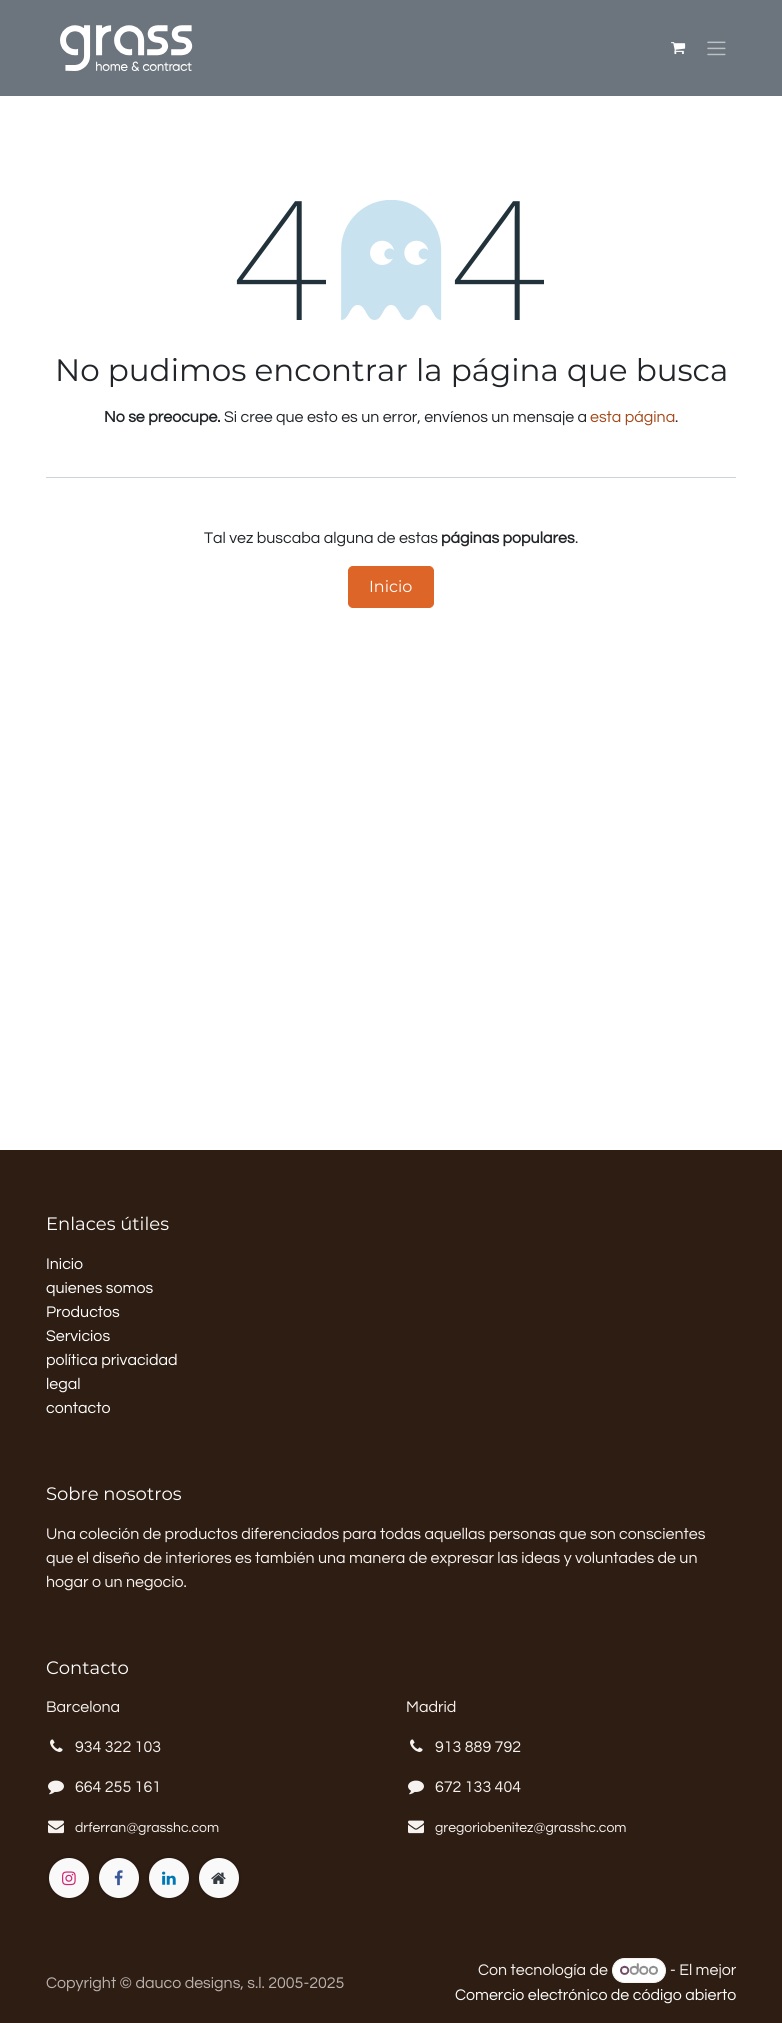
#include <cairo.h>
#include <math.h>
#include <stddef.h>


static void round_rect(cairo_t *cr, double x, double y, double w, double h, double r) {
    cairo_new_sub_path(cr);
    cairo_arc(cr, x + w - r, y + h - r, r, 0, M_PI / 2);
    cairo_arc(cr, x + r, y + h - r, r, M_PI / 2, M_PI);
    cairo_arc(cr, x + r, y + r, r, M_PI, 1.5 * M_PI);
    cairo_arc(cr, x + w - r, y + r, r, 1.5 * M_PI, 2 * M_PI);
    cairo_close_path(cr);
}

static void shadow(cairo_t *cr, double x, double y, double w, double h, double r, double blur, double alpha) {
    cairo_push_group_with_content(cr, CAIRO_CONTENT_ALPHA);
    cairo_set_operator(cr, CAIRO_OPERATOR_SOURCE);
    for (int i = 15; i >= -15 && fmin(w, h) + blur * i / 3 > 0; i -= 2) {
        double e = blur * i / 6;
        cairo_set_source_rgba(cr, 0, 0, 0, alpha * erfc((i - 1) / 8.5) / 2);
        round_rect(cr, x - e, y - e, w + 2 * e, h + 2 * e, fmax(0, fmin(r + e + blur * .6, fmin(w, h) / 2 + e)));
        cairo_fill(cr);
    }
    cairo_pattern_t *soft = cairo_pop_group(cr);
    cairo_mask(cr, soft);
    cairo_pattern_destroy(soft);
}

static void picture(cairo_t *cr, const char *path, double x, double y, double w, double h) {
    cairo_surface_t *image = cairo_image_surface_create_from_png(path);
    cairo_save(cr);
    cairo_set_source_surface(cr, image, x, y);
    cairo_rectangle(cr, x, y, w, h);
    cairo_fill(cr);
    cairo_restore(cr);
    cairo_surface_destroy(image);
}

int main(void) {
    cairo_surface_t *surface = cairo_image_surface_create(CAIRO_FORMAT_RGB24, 782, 2023);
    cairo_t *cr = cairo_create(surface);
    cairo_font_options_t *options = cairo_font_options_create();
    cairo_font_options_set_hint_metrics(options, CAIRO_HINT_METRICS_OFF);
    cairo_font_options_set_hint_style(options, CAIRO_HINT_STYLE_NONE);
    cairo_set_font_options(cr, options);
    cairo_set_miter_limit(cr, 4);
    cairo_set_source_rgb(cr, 1, 1, 1);
    cairo_paint(cr);
    cairo_set_source_rgb(cr, 0.424, 0.459, 0.49);
    cairo_rectangle(cr, 0, 0, 782, 96);
    cairo_fill(cr);
    picture(cr, "img1.png", 60, 25, 133, 46);
    picture(cr, "img2.png", 671, 42, 15, 13);
    picture(cr, "img3.png", 707, 41, 19, 15);
    picture(cr, "img4.png", 236, 200, 308, 120);
    cairo_select_font_face(cr, "Montserrat", CAIRO_FONT_SLANT_NORMAL, CAIRO_FONT_WEIGHT_NORMAL);
    cairo_set_font_size(cr, 31);
    cairo_set_source_rgb(cr, 0.129, 0.145, 0.161);
    cairo_move_to(cr, 55, 381);
    cairo_show_text(cr, "No pudimos encontrar la página que busca");
    cairo_select_font_face(cr, "Questrial", CAIRO_FONT_SLANT_NORMAL, CAIRO_FONT_WEIGHT_BOLD);
    cairo_set_font_size(cr, 16);
    cairo_move_to(cr, 104, 422);
    cairo_show_text(cr, "No se preocupe.");
    cairo_select_font_face(cr, "Questrial", CAIRO_FONT_SLANT_NORMAL, CAIRO_FONT_WEIGHT_NORMAL);
    cairo_move_to(cr, 224, 422);
    cairo_show_text(cr, "Si cree que esto es un error, envíenos un mensaje a");
    cairo_set_source_rgb(cr, 0.647, 0.282, 0.098);
    cairo_move_to(cr, 590, 422);
    cairo_show_text(cr, "esta página");
    cairo_set_source_rgb(cr, 0.129, 0.145, 0.161);
    cairo_move_to(cr, 675, 422);
    cairo_show_text(cr, ".");
    cairo_set_source_rgb(cr, 0.808, 0.831, 0.855);
    cairo_rectangle(cr, 46, 477, 690, 1);
    cairo_fill(cr);
    cairo_set_source_rgb(cr, 0.129, 0.145, 0.161);
    cairo_move_to(cr, 204, 543);
    cairo_show_text(cr, "Tal vez buscaba alguna de estas");
    cairo_select_font_face(cr, "Questrial", CAIRO_FONT_SLANT_NORMAL, CAIRO_FONT_WEIGHT_BOLD);
    cairo_move_to(cr, 441, 543);
    cairo_show_text(cr, "páginas populares");
    cairo_select_font_face(cr, "Questrial", CAIRO_FONT_SLANT_NORMAL, CAIRO_FONT_WEIGHT_NORMAL);
    cairo_move_to(cr, 575, 543);
    cairo_show_text(cr, ".");
    cairo_set_source_rgb(cr, 0.871, 0.396, 0.157);
    round_rect(cr, 348.5, 566.5, 85, 41, 4.5);
    cairo_fill_preserve(cr);
    cairo_set_line_width(cr, 1);
    cairo_stroke(cr);
    cairo_select_font_face(cr, "Montserrat", CAIRO_FONT_SLANT_NORMAL, CAIRO_FONT_WEIGHT_NORMAL);
    cairo_set_source_rgb(cr, 1, 1, 1);
    cairo_move_to(cr, 369, 592);
    cairo_show_text(cr, "Inicio");
    cairo_set_source_rgb(cr, 0.18, 0.114, 0.078);
    cairo_rectangle(cr, 0, 1150, 782, 873);
    cairo_fill(cr);
    cairo_set_font_size(cr, 18);
    cairo_set_source_rgb(cr, 1, 1, 1);
    cairo_move_to(cr, 46, 1230);
    cairo_show_text(cr, "Enlaces útiles");
    cairo_select_font_face(cr, "Questrial", CAIRO_FONT_SLANT_NORMAL, CAIRO_FONT_WEIGHT_NORMAL);
    cairo_set_font_size(cr, 16);
    cairo_move_to(cr, 46, 1269);
    cairo_show_text(cr, "Inicio");
    cairo_move_to(cr, 46, 1293);
    cairo_show_text(cr, "quienes somos");
    cairo_move_to(cr, 46, 1317);
    cairo_show_text(cr, "Productos");
    cairo_move_to(cr, 46, 1341);
    cairo_show_text(cr, "Servicios");
    cairo_move_to(cr, 46, 1365);
    cairo_show_text(cr, "política privacidad");
    cairo_move_to(cr, 46, 1389);
    cairo_show_text(cr, "legal");
    cairo_move_to(cr, 46, 1413);
    cairo_show_text(cr, "contacto");
    cairo_select_font_face(cr, "Montserrat", CAIRO_FONT_SLANT_NORMAL, CAIRO_FONT_WEIGHT_NORMAL);
    cairo_set_font_size(cr, 18);
    cairo_move_to(cr, 46, 1500);
    cairo_show_text(cr, "Sobre nosotros");
    cairo_select_font_face(cr, "Questrial", CAIRO_FONT_SLANT_NORMAL, CAIRO_FONT_WEIGHT_NORMAL);
    cairo_set_font_size(cr, 16);
    cairo_set_source_rgb(cr, 0.961, 0.949, 0.941);
    cairo_move_to(cr, 46, 1539);
    cairo_show_text(cr, "Una coleción de productos diferenciados para todas aquellas personas que son conscientes");
    cairo_move_to(cr, 46, 1563);
    cairo_show_text(cr, "que el diseño de interiores es también una manera de expresar las ideas y voluntades de un");
    cairo_move_to(cr, 46, 1587);
    cairo_show_text(cr, "hogar o un negocio.");
    cairo_select_font_face(cr, "Montserrat", CAIRO_FONT_SLANT_NORMAL, CAIRO_FONT_WEIGHT_NORMAL);
    cairo_set_font_size(cr, 18);
    cairo_set_source_rgb(cr, 1, 1, 1);
    cairo_move_to(cr, 46, 1674);
    cairo_show_text(cr, "Contacto");
    cairo_select_font_face(cr, "Questrial", CAIRO_FONT_SLANT_NORMAL, CAIRO_FONT_WEIGHT_NORMAL);
    cairo_set_font_size(cr, 16);
    cairo_set_source_rgb(cr, 0.961, 0.949, 0.941);
    cairo_move_to(cr, 46, 1712);
    cairo_show_text(cr, "Barcelona");
    picture(cr, "img5.png", 50, 1739, 13, 13);
    cairo_move_to(cr, 75, 1752);
    cairo_show_text(cr, "934 322 103");
    picture(cr, "img6.png", 48, 1780, 16, 15);
    cairo_move_to(cr, 75, 1792);
    cairo_show_text(cr, "664 255 161");
    picture(cr, "img7.png", 48, 1820, 16, 14);
    cairo_set_font_size(cr, 14);
    cairo_move_to(cr, 75, 1832);
    cairo_show_text(cr, "drferran@grasshc.com");
    cairo_set_font_size(cr, 16);
    cairo_move_to(cr, 406, 1712);
    cairo_show_text(cr, "Madrid");
    picture(cr, "img5.png", 410, 1739, 13, 13);
    cairo_move_to(cr, 435, 1752);
    cairo_show_text(cr, "913 889 792");
    picture(cr, "img6.png", 408, 1780, 16, 15);
    cairo_move_to(cr, 435, 1792);
    cairo_show_text(cr, "672 133 404");
    picture(cr, "img7.png", 408, 1820, 16, 14);
    cairo_set_font_size(cr, 14);
    cairo_move_to(cr, 435, 1832);
    cairo_show_text(cr, "gregoriobenitez@grasshc.com");
    cairo_set_source_rgb(cr, 0, 0, 0);
    shadow(cr, 49, 1858, 40, 40, 20, 2.5, 0.25);
    cairo_set_source_rgb(cr, 0.973, 0.976, 0.98);
    cairo_arc(cr, 69, 1878, 20, 0, 2 * M_PI);
    cairo_fill(cr);
    picture(cr, "img8.png", 62, 1871, 14, 15);
    cairo_set_source_rgb(cr, 0, 0, 0);
    shadow(cr, 99, 1858, 40, 40, 20, 2.5, 0.25);
    cairo_set_source_rgb(cr, 0.973, 0.976, 0.98);
    cairo_arc(cr, 119, 1878, 20, 0, 2 * M_PI);
    cairo_fill(cr);
    picture(cr, "img9.png", 114, 1870, 9, 16);
    cairo_set_source_rgb(cr, 0, 0, 0);
    shadow(cr, 149, 1858, 40, 40, 20, 2.5, 0.25);
    cairo_set_source_rgb(cr, 0.973, 0.976, 0.98);
    cairo_arc(cr, 169, 1878, 20, 0, 2 * M_PI);
    cairo_fill(cr);
    picture(cr, "img10.png", 162, 1871, 14, 14);
    cairo_set_source_rgb(cr, 0, 0, 0);
    shadow(cr, 199, 1858, 40, 40, 20, 2.5, 0.25);
    cairo_set_source_rgb(cr, 0.973, 0.976, 0.98);
    cairo_arc(cr, 219, 1878, 20, 0, 2 * M_PI);
    cairo_fill(cr);
    picture(cr, "img11.png", 211, 1872, 15, 12);
    cairo_set_font_size(cr, 16);
    cairo_set_source_rgb(cr, 0.725, 0.698, 0.682);
    cairo_move_to(cr, 46, 1988);
    cairo_show_text(cr, "Copyright © dauco designs, s.l. 2005-2025");
    cairo_set_source_rgb(cr, 0.961, 0.949, 0.941);
    cairo_move_to(cr, 478, 1975);
    cairo_show_text(cr, "Con tecnología de");
    cairo_set_source_rgb(cr, 0.996, 0.996, 0.996);
    round_rect(cr, 612.5, 1958.5, 53, 24, 12);
    cairo_fill_preserve(cr);
    cairo_set_source_rgb(cr, 0.961, 0.949, 0.941);
    cairo_stroke(cr);
    picture(cr, "img12.png", 620, 1963, 38, 12);
    cairo_move_to(cr, 670, 1975);
    cairo_show_text(cr, "- El mejor");
    cairo_set_source_rgb(cr, 1, 1, 1);
    cairo_move_to(cr, 455, 2000);
    cairo_show_text(cr, "Comercio electrónico de código abierto");
    cairo_surface_write_to_png(surface, "page.png");
    cairo_font_options_destroy(options);
    cairo_destroy(cr);
    cairo_surface_destroy(surface);
    return 0;
}
